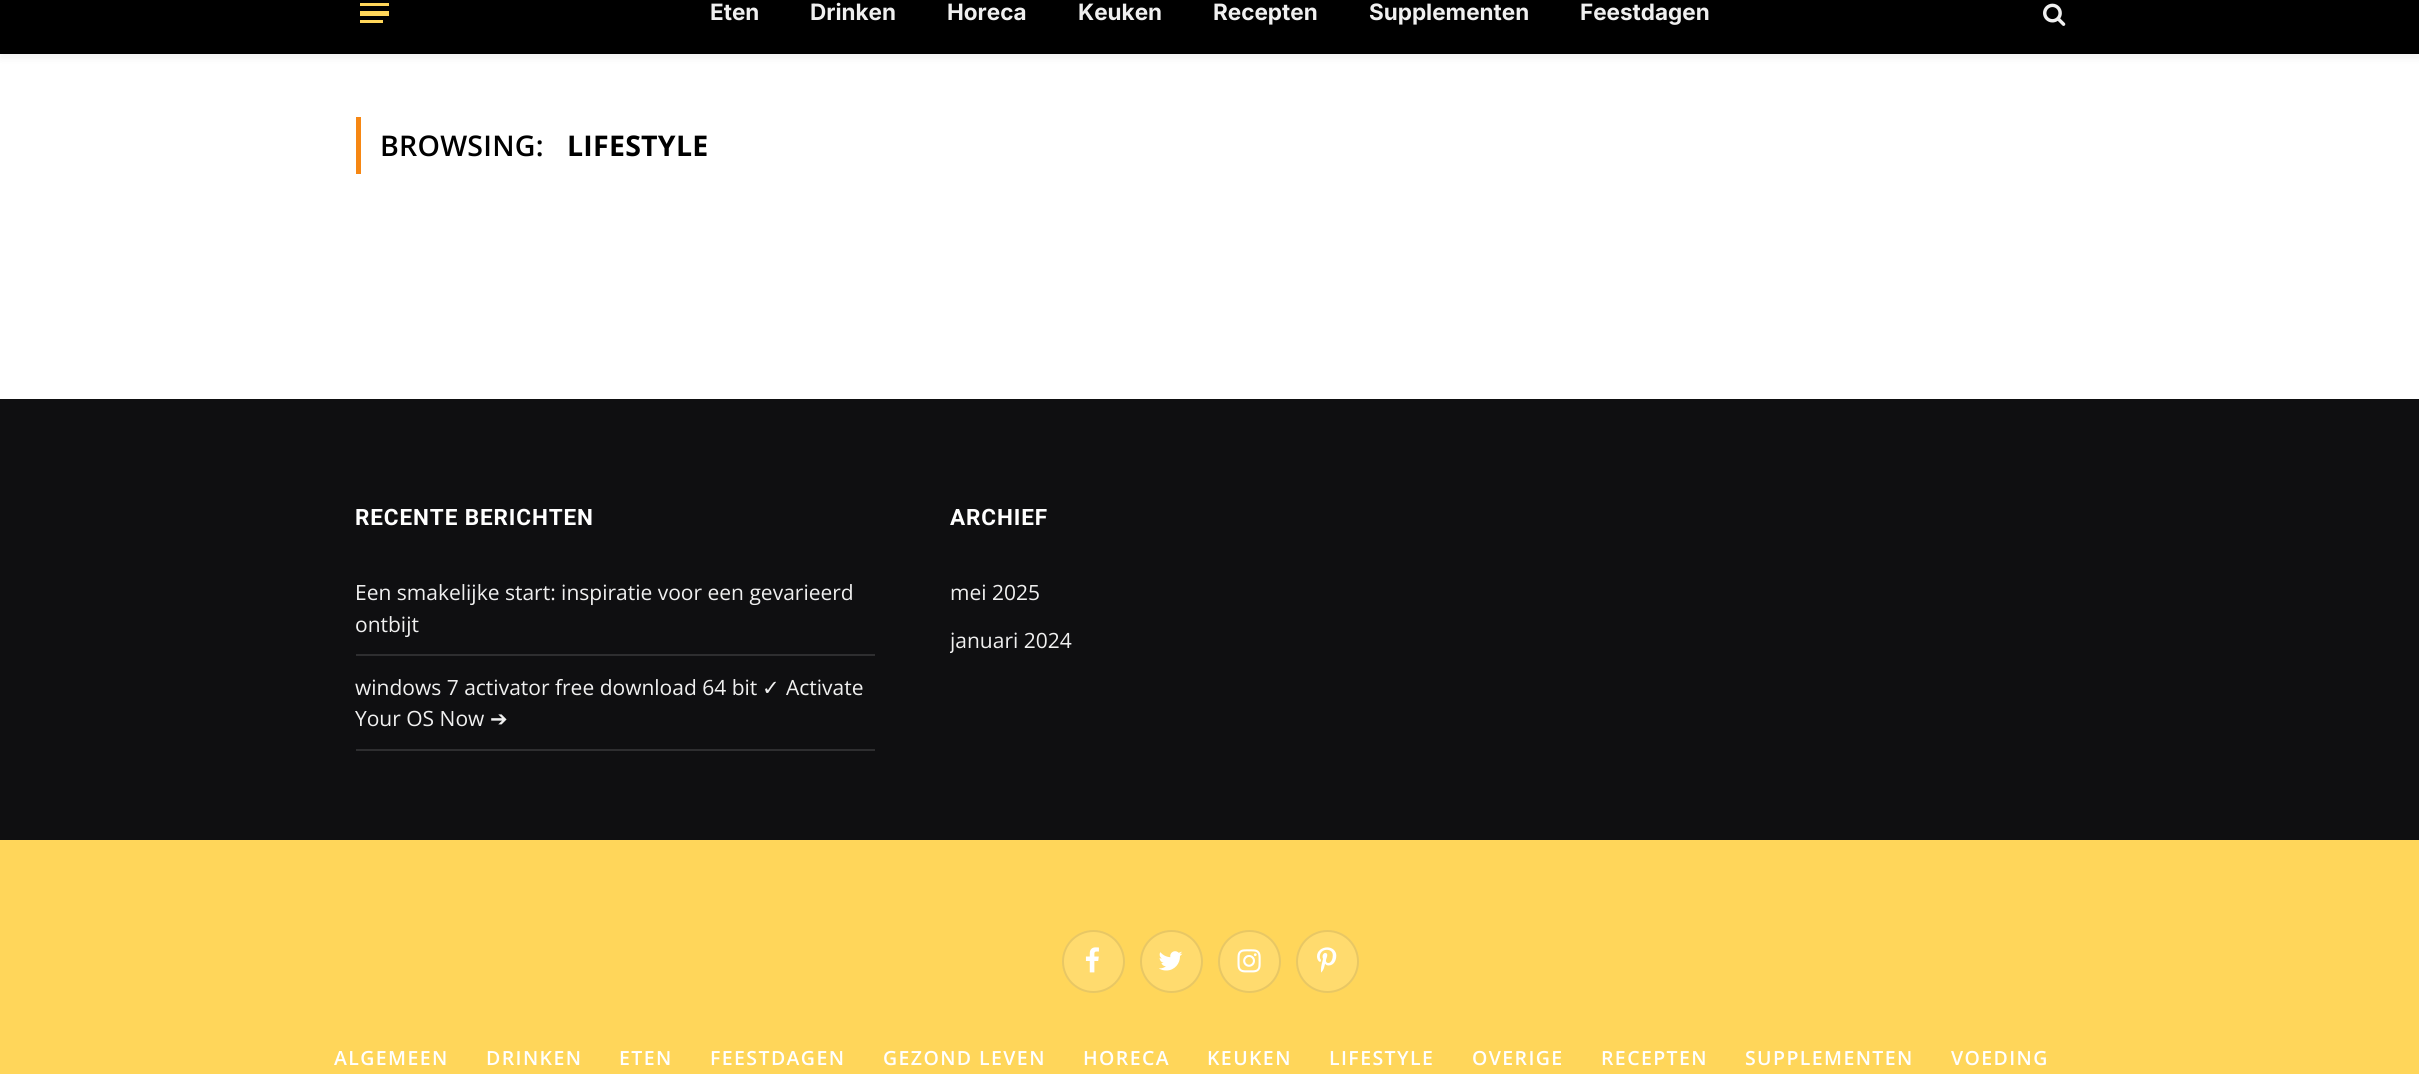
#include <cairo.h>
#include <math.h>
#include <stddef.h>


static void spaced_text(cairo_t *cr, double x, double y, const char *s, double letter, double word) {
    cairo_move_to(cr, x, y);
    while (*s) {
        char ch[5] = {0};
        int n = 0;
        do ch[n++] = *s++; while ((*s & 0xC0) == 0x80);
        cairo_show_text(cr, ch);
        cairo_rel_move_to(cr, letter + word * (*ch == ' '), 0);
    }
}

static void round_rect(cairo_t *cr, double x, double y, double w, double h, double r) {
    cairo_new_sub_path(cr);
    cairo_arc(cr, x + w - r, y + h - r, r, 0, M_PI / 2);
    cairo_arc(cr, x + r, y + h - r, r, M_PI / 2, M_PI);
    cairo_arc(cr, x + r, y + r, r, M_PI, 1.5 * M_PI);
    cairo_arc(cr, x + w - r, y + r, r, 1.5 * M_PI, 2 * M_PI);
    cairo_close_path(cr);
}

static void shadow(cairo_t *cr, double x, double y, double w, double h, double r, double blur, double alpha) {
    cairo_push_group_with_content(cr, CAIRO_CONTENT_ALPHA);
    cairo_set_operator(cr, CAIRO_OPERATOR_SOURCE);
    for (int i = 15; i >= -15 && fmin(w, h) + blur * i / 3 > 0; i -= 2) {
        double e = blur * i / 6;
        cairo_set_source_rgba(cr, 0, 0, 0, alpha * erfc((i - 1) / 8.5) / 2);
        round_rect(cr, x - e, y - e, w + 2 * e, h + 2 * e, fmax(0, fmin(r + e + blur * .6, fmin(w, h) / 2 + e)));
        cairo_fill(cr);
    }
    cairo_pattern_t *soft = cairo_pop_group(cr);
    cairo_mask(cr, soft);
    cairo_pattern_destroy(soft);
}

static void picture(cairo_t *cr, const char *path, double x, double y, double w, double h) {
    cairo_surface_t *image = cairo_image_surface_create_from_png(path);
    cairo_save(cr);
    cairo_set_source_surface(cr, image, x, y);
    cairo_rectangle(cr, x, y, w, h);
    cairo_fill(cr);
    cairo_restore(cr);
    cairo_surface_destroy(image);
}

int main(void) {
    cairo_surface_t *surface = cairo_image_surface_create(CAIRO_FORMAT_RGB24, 2419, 1074);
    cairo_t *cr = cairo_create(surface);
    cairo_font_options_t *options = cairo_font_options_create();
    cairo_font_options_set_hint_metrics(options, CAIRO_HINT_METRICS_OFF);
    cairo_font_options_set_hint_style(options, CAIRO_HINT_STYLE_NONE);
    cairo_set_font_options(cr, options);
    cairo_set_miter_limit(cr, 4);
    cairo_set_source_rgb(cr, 1, 1, 1);
    cairo_paint(cr);
    cairo_set_source_rgb(cr, 0, 0, 0);
    shadow(cr, 0, -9, 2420, 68, 0, 3, 0.05);
    cairo_set_source_rgb(cr, 0, 0, 0);
    cairo_rectangle(cr, 0, 0, 2419, 54);
    cairo_fill(cr);
    cairo_set_source_rgb(cr, 1, 0.839, 0.353);
    cairo_rectangle(cr, 360, 20, 23, 3);
    cairo_fill(cr);
    cairo_rectangle(cr, 360, 3, 29, 3);
    cairo_fill(cr);
    cairo_rectangle(cr, 360, 11, 29, 5);
    cairo_fill(cr);
    cairo_select_font_face(cr, "Inter", CAIRO_FONT_SLANT_NORMAL, CAIRO_FONT_WEIGHT_BOLD);
    cairo_set_font_size(cr, 22.5);
    cairo_set_source_rgb(cr, 0.941, 0.941, 0.941);
    cairo_move_to(cr, 710, 20);
    cairo_show_text(cr, "Eten");
    cairo_move_to(cr, 810, 20);
    cairo_show_text(cr, "Drinken");
    cairo_move_to(cr, 947, 20);
    cairo_show_text(cr, "Horeca");
    cairo_move_to(cr, 1078, 20);
    cairo_show_text(cr, "Keuken");
    cairo_move_to(cr, 1213, 20);
    cairo_show_text(cr, "Recepten");
    cairo_move_to(cr, 1369, 20);
    cairo_show_text(cr, "Supplementen");
    cairo_move_to(cr, 1580, 20);
    cairo_show_text(cr, "Feestdagen");
    picture(cr, "img1.png", 2043, 3, 23, 23);
    cairo_set_source_rgb(cr, 0.961, 0.529, 0.078);
    cairo_rectangle(cr, 356, 117, 5, 57);
    cairo_fill(cr);
    cairo_select_font_face(cr, "Open Sans SemiBold", CAIRO_FONT_SLANT_NORMAL, CAIRO_FONT_WEIGHT_NORMAL);
    cairo_set_font_size(cr, 28.5);
    cairo_set_source_rgb(cr, 0, 0, 0);
    spaced_text(cr, 380, 156, "BROWSING:", 0.25, 0);
    cairo_select_font_face(cr, "Open Sans", CAIRO_FONT_SLANT_NORMAL, CAIRO_FONT_WEIGHT_BOLD);
    spaced_text(cr, 567, 156, "LIFESTYLE", 0.25, 0);
    cairo_set_source_rgb(cr, 0.059, 0.059, 0.067);
    cairo_rectangle(cr, 0, 399, 2419, 441);
    cairo_fill(cr);
    cairo_select_font_face(cr, "Roboto", CAIRO_FONT_SLANT_NORMAL, CAIRO_FONT_WEIGHT_BOLD);
    cairo_set_font_size(cr, 22.5);
    cairo_set_source_rgb(cr, 1, 1, 1);
    spaced_text(cr, 355, 525, "RECENTE BERICHTEN", 0.9, 0);
    cairo_set_source_rgb(cr, 0.18, 0.18, 0.188);
    cairo_rectangle(cr, 356, 654, 519, 2);
    cairo_fill(cr);
    cairo_select_font_face(cr, "Open Sans", CAIRO_FONT_SLANT_NORMAL, CAIRO_FONT_WEIGHT_NORMAL);
    cairo_set_font_size(cr, 21);
    cairo_set_source_rgb(cr, 0.941, 0.941, 0.941);
    cairo_move_to(cr, 355, 600);
    cairo_show_text(cr, "Een smakelijke start: inspiratie voor een gevarieerd");
    cairo_move_to(cr, 355, 632);
    cairo_show_text(cr, "ontbijt");
    cairo_set_source_rgb(cr, 0.18, 0.18, 0.188);
    cairo_rectangle(cr, 356, 749, 519, 2);
    cairo_fill(cr);
    cairo_set_source_rgb(cr, 0.941, 0.941, 0.941);
    cairo_move_to(cr, 355, 695);
    cairo_show_text(cr, "windows 7 activator free download 64 bit");
    cairo_select_font_face(cr, "DejaVu Sans", CAIRO_FONT_SLANT_NORMAL, CAIRO_FONT_WEIGHT_NORMAL);
    cairo_move_to(cr, 762, 695);
    cairo_show_text(cr, "✓");
    cairo_select_font_face(cr, "Open Sans", CAIRO_FONT_SLANT_NORMAL, CAIRO_FONT_WEIGHT_NORMAL);
    cairo_move_to(cr, 786, 695);
    cairo_show_text(cr, "Activate");
    cairo_move_to(cr, 355, 726);
    cairo_show_text(cr, "Your OS Now");
    cairo_select_font_face(cr, "DejaVu Sans", CAIRO_FONT_SLANT_NORMAL, CAIRO_FONT_WEIGHT_NORMAL);
    cairo_move_to(cr, 490, 726);
    cairo_show_text(cr, "➔");
    cairo_select_font_face(cr, "Roboto", CAIRO_FONT_SLANT_NORMAL, CAIRO_FONT_WEIGHT_BOLD);
    cairo_set_font_size(cr, 22.5);
    cairo_set_source_rgb(cr, 1, 1, 1);
    spaced_text(cr, 950, 525, "ARCHIEF", 0.9, 0);
    cairo_select_font_face(cr, "Open Sans", CAIRO_FONT_SLANT_NORMAL, CAIRO_FONT_WEIGHT_NORMAL);
    cairo_set_font_size(cr, 21);
    cairo_set_source_rgb(cr, 0.941, 0.941, 0.941);
    cairo_move_to(cr, 950, 600);
    cairo_show_text(cr, "mei 2025");
    cairo_save(cr);
    cairo_rectangle(cr, 950, 617, 520, 46);
    cairo_clip(cr);
    cairo_move_to(cr, 950, 648);
    cairo_show_text(cr, "januari 2024");
    cairo_restore(cr);
    cairo_set_source_rgb(cr, 1, 0.839, 0.353);
    cairo_rectangle(cr, 0, 840, 2419, 234);
    cairo_fill(cr);
    cairo_set_source_rgb(cr, 1, 0.859, 0.431);
    cairo_arc(cr, 1093.5, 961.5, 31.5, 0, 2 * M_PI);
    cairo_fill(cr);
    cairo_arc(cr, 1093.5, 961.5, 30.5, 0, 2 * M_PI);
    cairo_set_source_rgba(cr, 0, 0, 0, 0.09);
    cairo_stroke(cr);
    picture(cr, "img2.png", 1085, 947, 14, 26);
    cairo_set_source_rgb(cr, 1, 0.859, 0.431);
    cairo_arc(cr, 1171.5, 961.5, 31.5, 0, 2 * M_PI);
    cairo_fill(cr);
    cairo_arc(cr, 1171.5, 961.5, 30.5, 0, 2 * M_PI);
    cairo_set_source_rgba(cr, 0, 0, 0, 0.09);
    cairo_stroke(cr);
    picture(cr, "img3.png", 1159, 951, 24, 20);
    cairo_set_source_rgb(cr, 1, 0.859, 0.431);
    cairo_arc(cr, 1249.5, 961.5, 31.5, 0, 2 * M_PI);
    cairo_fill(cr);
    cairo_arc(cr, 1249.5, 961.5, 30.5, 0, 2 * M_PI);
    cairo_set_source_rgba(cr, 0, 0, 0, 0.09);
    cairo_stroke(cr);
    picture(cr, "img4.png", 1237, 949, 24, 24);
    cairo_set_source_rgb(cr, 1, 0.859, 0.431);
    cairo_arc(cr, 1327.5, 961.5, 31.5, 0, 2 * M_PI);
    cairo_fill(cr);
    cairo_arc(cr, 1327.5, 961.5, 30.5, 0, 2 * M_PI);
    cairo_set_source_rgba(cr, 0, 0, 0, 0.09);
    cairo_stroke(cr);
    picture(cr, "img5.png", 1317, 947, 20, 26);
    cairo_select_font_face(cr, "Open Sans SemiBold", CAIRO_FONT_SLANT_NORMAL, CAIRO_FONT_WEIGHT_NORMAL);
    cairo_set_font_size(cr, 19.5);
    cairo_set_source_rgb(cr, 1, 1, 1);
    spaced_text(cr, 334, 1065, "ALGEMEEN", 1.4, 0);
    spaced_text(cr, 486, 1065, "DRINKEN", 1.4, 0);
    spaced_text(cr, 619, 1065, "ETEN", 1.4, 0);
    spaced_text(cr, 710, 1065, "FEESTDAGEN", 1.4, 0);
    spaced_text(cr, 883, 1065, "GEZOND LEVEN", 1.4, 0);
    spaced_text(cr, 1083, 1065, "HORECA", 1.4, 0);
    spaced_text(cr, 1207, 1065, "KEUKEN", 1.4, 0);
    spaced_text(cr, 1329, 1065, "LIFESTYLE", 1.4, 0);
    spaced_text(cr, 1472, 1065, "OVERIGE", 1.4, 0);
    spaced_text(cr, 1601, 1065, "RECEPTEN", 1.4, 0);
    spaced_text(cr, 1745, 1065, "SUPPLEMENTEN", 1.4, 0);
    spaced_text(cr, 1951, 1065, "VOEDING", 1.4, 0);
    cairo_surface_write_to_png(surface, "page.png");
    cairo_font_options_destroy(options);
    cairo_destroy(cr);
    cairo_surface_destroy(surface);
    return 0;
}
